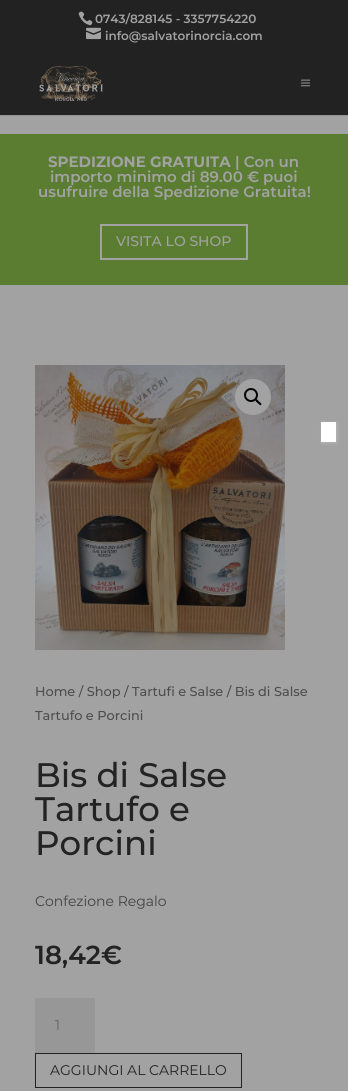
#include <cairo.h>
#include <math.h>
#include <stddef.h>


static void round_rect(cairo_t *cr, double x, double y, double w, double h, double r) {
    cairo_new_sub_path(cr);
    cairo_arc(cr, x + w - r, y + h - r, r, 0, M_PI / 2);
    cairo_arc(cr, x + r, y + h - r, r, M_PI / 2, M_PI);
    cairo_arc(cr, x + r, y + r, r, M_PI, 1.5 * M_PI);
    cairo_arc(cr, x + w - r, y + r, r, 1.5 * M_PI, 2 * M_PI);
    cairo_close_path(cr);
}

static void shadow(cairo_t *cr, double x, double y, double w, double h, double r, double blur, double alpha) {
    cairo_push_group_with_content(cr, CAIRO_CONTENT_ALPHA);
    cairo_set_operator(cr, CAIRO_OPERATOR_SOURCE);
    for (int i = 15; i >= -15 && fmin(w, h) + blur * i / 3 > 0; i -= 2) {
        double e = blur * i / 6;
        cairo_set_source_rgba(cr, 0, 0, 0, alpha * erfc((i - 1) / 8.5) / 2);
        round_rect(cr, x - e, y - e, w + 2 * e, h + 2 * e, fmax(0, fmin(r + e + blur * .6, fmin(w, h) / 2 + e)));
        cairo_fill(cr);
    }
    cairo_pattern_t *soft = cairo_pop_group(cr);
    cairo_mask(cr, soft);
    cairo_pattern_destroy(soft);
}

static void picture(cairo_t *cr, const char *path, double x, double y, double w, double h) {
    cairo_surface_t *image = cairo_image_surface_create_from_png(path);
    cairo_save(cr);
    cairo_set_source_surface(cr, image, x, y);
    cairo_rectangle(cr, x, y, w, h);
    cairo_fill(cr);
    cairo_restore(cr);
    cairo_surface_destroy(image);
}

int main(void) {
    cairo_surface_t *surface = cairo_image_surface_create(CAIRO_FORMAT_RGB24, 348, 1091);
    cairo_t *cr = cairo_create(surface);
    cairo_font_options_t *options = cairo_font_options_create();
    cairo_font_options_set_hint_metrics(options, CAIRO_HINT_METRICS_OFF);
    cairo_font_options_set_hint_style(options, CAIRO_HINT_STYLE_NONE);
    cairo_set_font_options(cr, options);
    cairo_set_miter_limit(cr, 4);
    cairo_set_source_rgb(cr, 0.635, 0.635, 0.635);
    cairo_paint(cr);
    cairo_set_source_rgb(cr, 0.573, 0.573, 0.573);
    cairo_rectangle(cr, 0, 115, 348, 1);
    cairo_fill(cr);
    cairo_set_source_rgb(cr, 0.133, 0.133, 0.133);
    cairo_rectangle(cr, 0, 0, 348, 115);
    cairo_fill(cr);
    picture(cr, "img1.png", 39, 66, 64, 35);
    picture(cr, "img2.png", 300, 79, 11, 8);
    picture(cr, "img3.png", 78, 11, 15, 15);
    cairo_select_font_face(cr, "Montserrat SemiBold", CAIRO_FONT_SLANT_NORMAL, CAIRO_FONT_WEIGHT_NORMAL);
    cairo_set_font_size(cr, 12);
    cairo_set_source_rgb(cr, 0.635, 0.635, 0.635);
    cairo_move_to(cr, 95, 23);
    cairo_show_text(cr, "0743/828145 - 3357754220");
    picture(cr, "img4.png", 86, 27, 15, 13);
    cairo_move_to(cr, 105, 40);
    cairo_show_text(cr, "info@salvatorinorcia.com");
    cairo_set_source_rgb(cr, 0.353, 0.49, 0.196);
    cairo_rectangle(cr, 0, 134, 348, 151);
    cairo_fill(cr);
    cairo_select_font_face(cr, "Montserrat", CAIRO_FONT_SLANT_NORMAL, CAIRO_FONT_WEIGHT_BOLD);
    cairo_set_font_size(cr, 15);
    cairo_set_source_rgb(cr, 0.635, 0.635, 0.635);
    cairo_move_to(cr, 48, 167);
    cairo_show_text(cr, "SPEDIZIONE GRATUITA");
    cairo_select_font_face(cr, "Montserrat SemiBold", CAIRO_FONT_SLANT_NORMAL, CAIRO_FONT_WEIGHT_NORMAL);
    cairo_move_to(cr, 235, 167);
    cairo_show_text(cr, "| Con un");
    cairo_move_to(cr, 50, 182);
    cairo_show_text(cr, "importo minimo di 89.00 € puoi");
    cairo_move_to(cr, 38, 197);
    cairo_show_text(cr, "usufruire della Spedizione Gratuita!");
    cairo_rectangle(cr, 101, 225, 146, 34);
    cairo_stroke(cr);
    cairo_select_font_face(cr, "Montserrat Medium", CAIRO_FONT_SLANT_NORMAL, CAIRO_FONT_WEIGHT_NORMAL);
    cairo_set_font_size(cr, 14);
    cairo_move_to(cr, 116, 246);
    cairo_show_text(cr, "VISITA LO SHOP");
    picture(cr, "img5.png", 35, 365, 250, 285);
    cairo_arc(cr, 253, 397, 18, 0, 2 * M_PI);
    cairo_fill(cr);
    cairo_arc(cr, 251, 395, 6, 0, 2 * M_PI);
    cairo_set_source_rgb(cr, 0.016, 0.016, 0.016);
    cairo_stroke(cr);
    cairo_new_path(cr);
    cairo_move_to(cr, 255.5, 399.5);
    cairo_curve_to(cr, 256.5, 398, 258.5, 401, 259, 401.5);
    cairo_curve_to(cr, 259.5, 402, 262.5, 404, 261, 405);
    cairo_curve_to(cr, 260, 406, 258.5, 403.5, 257.5, 403);
    cairo_curve_to(cr, 257, 402.5, 254.5, 400.5, 255.5, 399.5);
    cairo_close_path(cr);
    cairo_fill(cr);
    cairo_set_font_size(cr, 12.9);
    cairo_set_source_rgb(cr, 0.302, 0.302, 0.302);
    cairo_move_to(cr, 35, 696);
    cairo_show_text(cr, "Home / Shop / Tartufi e Salse / Bis di Salse");
    cairo_move_to(cr, 35, 720);
    cairo_show_text(cr, "Tartufo e Porcini");
    cairo_set_font_size(cr, 34);
    cairo_set_source_rgb(cr, 0.137, 0.137, 0.137);
    cairo_move_to(cr, 35, 787);
    cairo_show_text(cr, "Bis di Salse");
    cairo_move_to(cr, 35, 821);
    cairo_show_text(cr, "Tartufo e");
    cairo_move_to(cr, 35, 855);
    cairo_show_text(cr, "Porcini");
    cairo_select_font_face(cr, "Montserrat", CAIRO_FONT_SLANT_NORMAL, CAIRO_FONT_WEIGHT_NORMAL);
    cairo_set_font_size(cr, 14);
    cairo_set_source_rgb(cr, 0.263, 0.263, 0.263);
    cairo_move_to(cr, 35, 906);
    cairo_show_text(cr, "Confezione Regalo");
    cairo_select_font_face(cr, "Montserrat SemiBold", CAIRO_FONT_SLANT_NORMAL, CAIRO_FONT_WEIGHT_NORMAL);
    cairo_set_font_size(cr, 26);
    cairo_set_source_rgb(cr, 0.137, 0.137, 0.137);
    cairo_move_to(cr, 35, 964);
    cairo_show_text(cr, "18,42€");
    cairo_set_source_rgb(cr, 0.592, 0.592, 0.592);
    cairo_rectangle(cr, 35, 998, 60, 55);
    cairo_fill(cr);
    cairo_select_font_face(cr, "Montserrat", CAIRO_FONT_SLANT_NORMAL, CAIRO_FONT_WEIGHT_NORMAL);
    cairo_set_font_size(cr, 14);
    cairo_set_source_rgb(cr, 0.388, 0.388, 0.388);
    cairo_move_to(cr, 55, 1030);
    cairo_show_text(cr, "1");
    cairo_rectangle(cr, 35.5, 1053.5, 206, 34);
    cairo_set_source_rgb(cr, 0.133, 0.133, 0.133);
    cairo_set_line_width(cr, 1);
    cairo_stroke(cr);
    cairo_set_source_rgb(cr, 0.137, 0.137, 0.137);
    cairo_move_to(cr, 50, 1075);
    cairo_show_text(cr, "AGGIUNGI AL CARRELLO");
    cairo_set_source_rgb(cr, 1, 1, 1);
    shadow(cr, 322, 423, 15, 20, 0, 1.5, 0.23);
    cairo_set_source_rgb(cr, 1, 1, 1);
    cairo_rectangle(cr, 321, 422, 15, 20);
    cairo_fill(cr);
    cairo_surface_write_to_png(surface, "page.png");
    cairo_font_options_destroy(options);
    cairo_destroy(cr);
    cairo_surface_destroy(surface);
    return 0;
}
